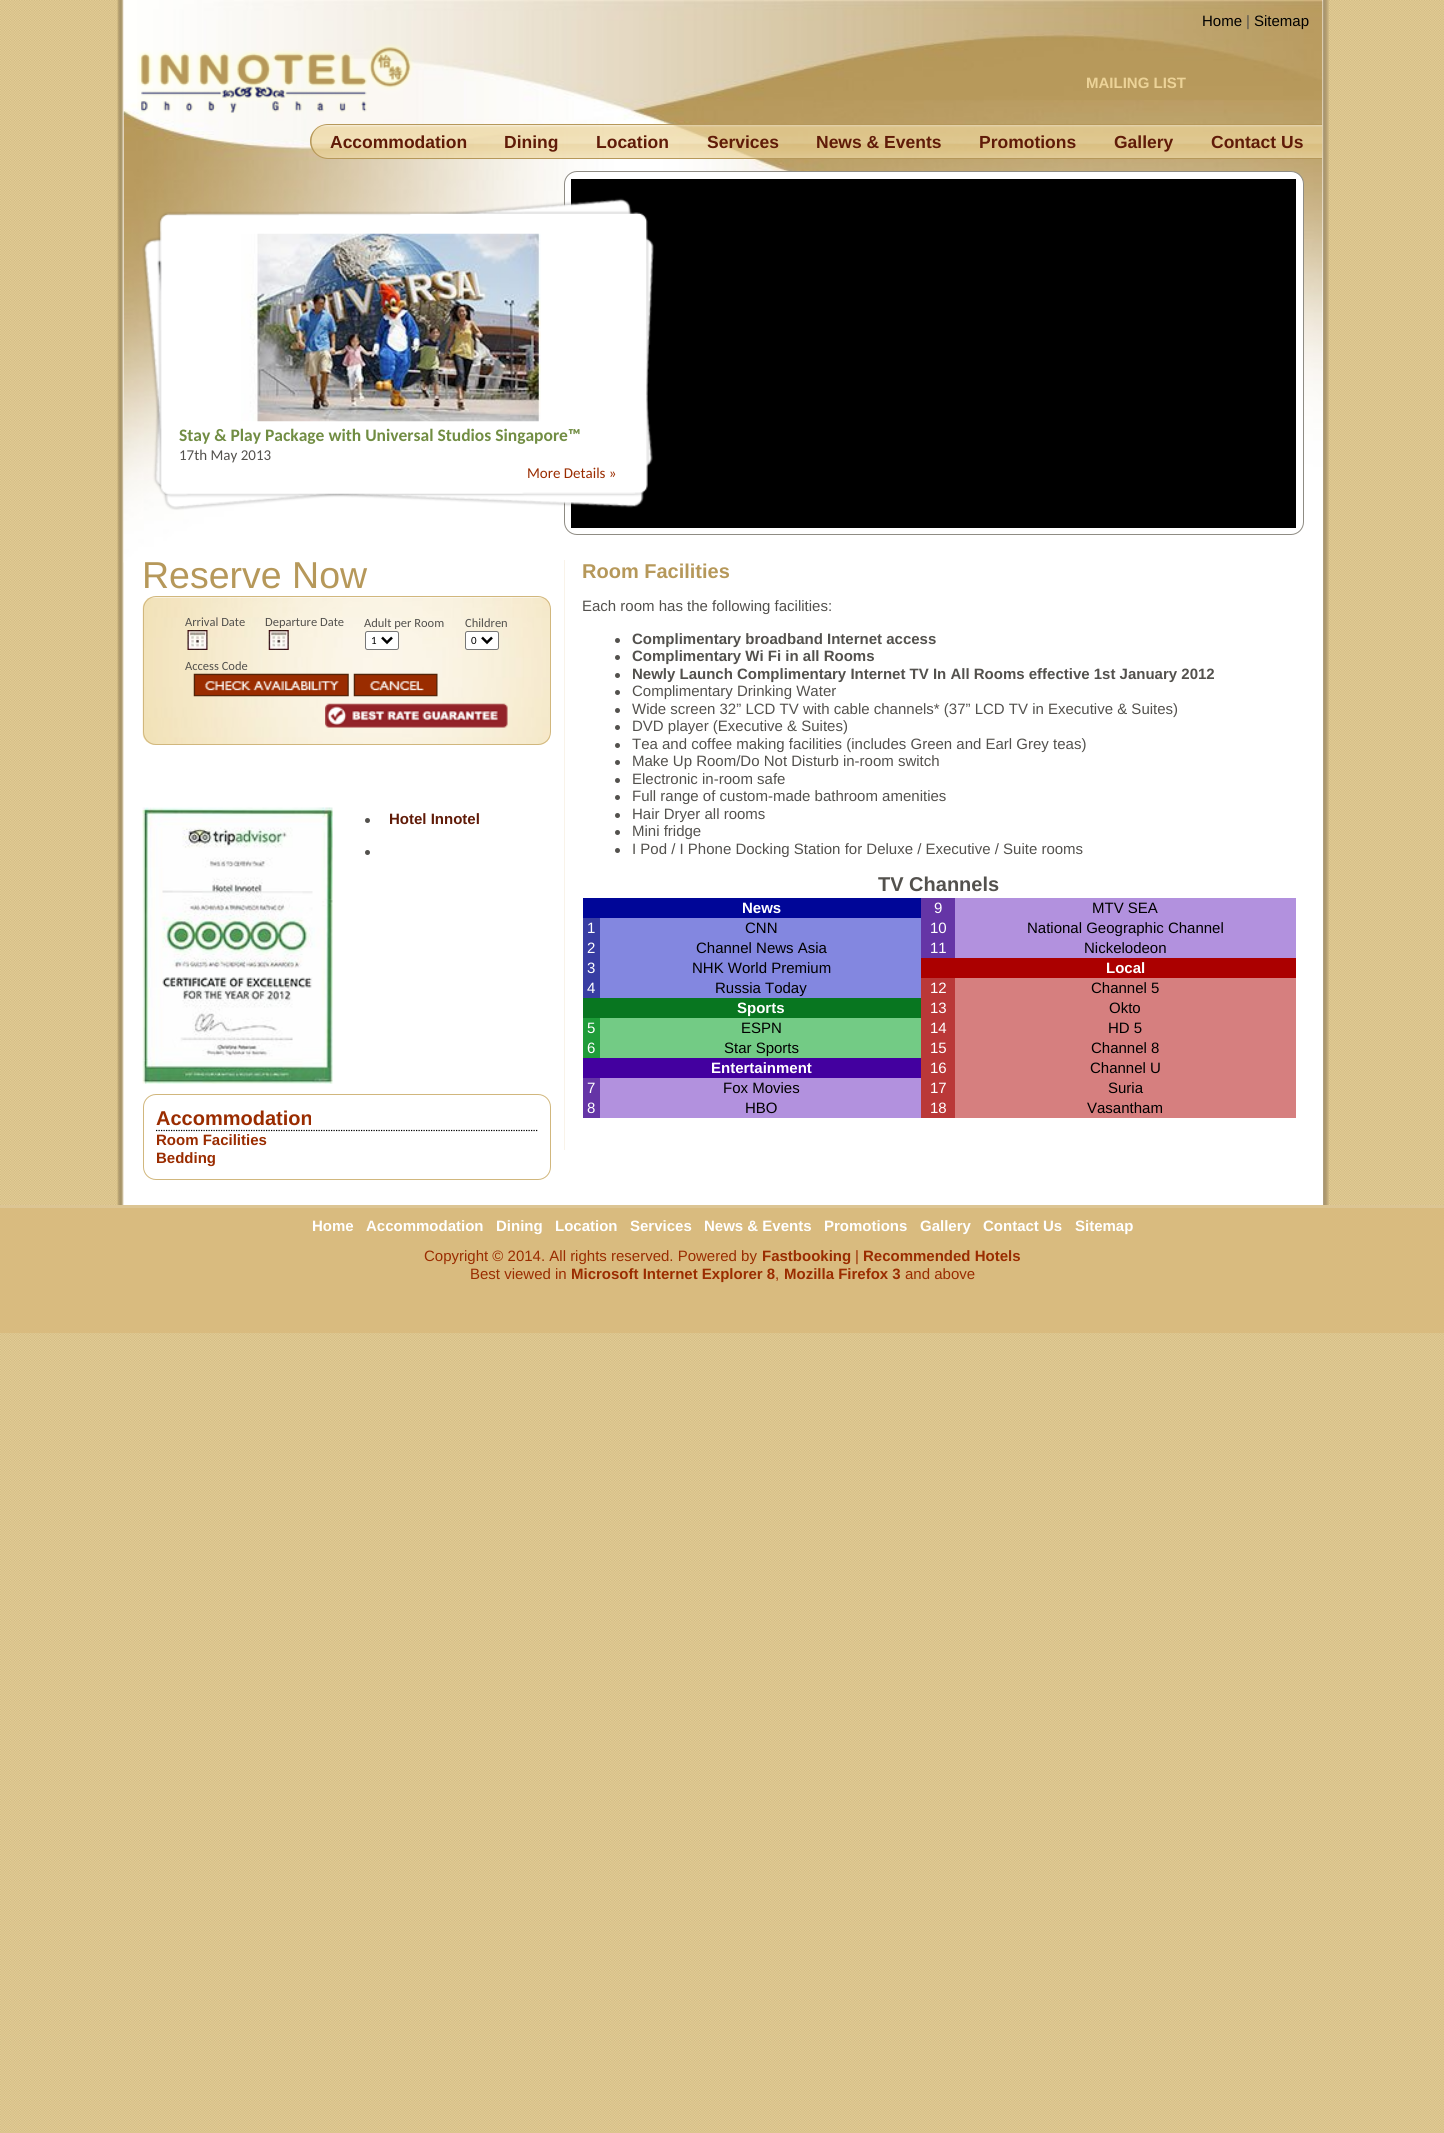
#include <cairo.h>
#include <math.h>
#include <stddef.h>


static void round_rect(cairo_t *cr, double x, double y, double w, double h, double r) {
    cairo_new_sub_path(cr);
    cairo_arc(cr, x + w - r, y + h - r, r, 0, M_PI / 2);
    cairo_arc(cr, x + r, y + h - r, r, M_PI / 2, M_PI);
    cairo_arc(cr, x + r, y + r, r, M_PI, 1.5 * M_PI);
    cairo_arc(cr, x + w - r, y + r, r, 1.5 * M_PI, 2 * M_PI);
    cairo_close_path(cr);
}

static void picture(cairo_t *cr, const char *path, double x, double y, double w, double h) {
    cairo_surface_t *image = cairo_image_surface_create_from_png(path);
    cairo_save(cr);
    cairo_set_source_surface(cr, image, x, y);
    cairo_rectangle(cr, x, y, w, h);
    cairo_fill(cr);
    cairo_restore(cr);
    cairo_surface_destroy(image);
}

int main(void) {
    cairo_surface_t *surface = cairo_image_surface_create(CAIRO_FORMAT_RGB24, 1444, 2133);
    cairo_t *cr = cairo_create(surface);
    cairo_font_options_t *options = cairo_font_options_create();
    cairo_font_options_set_hint_metrics(options, CAIRO_HINT_METRICS_OFF);
    cairo_font_options_set_hint_style(options, CAIRO_HINT_STYLE_NONE);
    cairo_set_font_options(cr, options);
    cairo_set_miter_limit(cr, 4);
    cairo_set_source_rgb(cr, 1, 1, 1);
    cairo_paint(cr);
    picture(cr, "img1.png", 0, 0, 1444, 2133);
    picture(cr, "img2.png", 117, 0, 1212, 1205);
    cairo_set_source_rgb(cr, 1, 1, 1);
    cairo_rectangle(cr, 124, 0, 1199, 1205);
    cairo_fill(cr);
    picture(cr, "img3.png", 123, 0, 1200, 563);
    cairo_select_font_face(cr, "Liberation Sans", CAIRO_FONT_SLANT_NORMAL, CAIRO_FONT_WEIGHT_NORMAL);
    cairo_set_font_size(cr, 15);
    cairo_set_source_rgb(cr, 0, 0, 0);
    cairo_move_to(cr, 1202, 26);
    cairo_show_text(cr, "Home");
    cairo_set_source_rgb(cr, 0.325, 0.318, 0.302);
    cairo_move_to(cr, 1246, 26);
    cairo_show_text(cr, "|");
    cairo_set_source_rgb(cr, 0, 0, 0);
    cairo_move_to(cr, 1254, 26);
    cairo_show_text(cr, "Sitemap");
    picture(cr, "img4.png", 137, 44, 277, 70);
    cairo_select_font_face(cr, "Liberation Sans", CAIRO_FONT_SLANT_NORMAL, CAIRO_FONT_WEIGHT_BOLD);
    cairo_set_source_rgb(cr, 0.922, 0.827, 0.596);
    cairo_move_to(cr, 1086, 88);
    cairo_show_text(cr, "MAILING LIST");
    picture(cr, "img5.png", 310, 125, 1013, 34);
    cairo_set_source_rgb(cr, 0.714, 0.596, 0.353);
    cairo_set_fill_rule(cr, CAIRO_FILL_RULE_EVEN_ODD);
    cairo_new_path(cr);
    cairo_move_to(cr, 328, 124);
    cairo_line_to(cr, 1322, 124);
    cairo_line_to(cr, 1322, 159);
    cairo_line_to(cr, 328, 159);
    cairo_curve_to(cr, 318, 159, 310, 151, 310, 141);
    cairo_curve_to(cr, 310, 132, 318, 124, 328, 124);
    cairo_close_path(cr);
    cairo_move_to(cr, 328, 125);
    cairo_line_to(cr, 1322, 125);
    cairo_line_to(cr, 1322, 158);
    cairo_line_to(cr, 328, 158);
    cairo_curve_to(cr, 306, 157, 306, 125, 328, 125);
    cairo_close_path(cr);
    cairo_fill(cr);
    cairo_set_font_size(cr, 17.5);
    cairo_set_source_rgb(cr, 0.376, 0.106, 0.035);
    cairo_move_to(cr, 330, 148);
    cairo_show_text(cr, "Accommodation");
    cairo_move_to(cr, 504, 148);
    cairo_show_text(cr, "Dining");
    cairo_move_to(cr, 596, 148);
    cairo_show_text(cr, "Location");
    cairo_move_to(cr, 707, 148);
    cairo_show_text(cr, "Services");
    cairo_move_to(cr, 816, 148);
    cairo_show_text(cr, "News & Events");
    cairo_move_to(cr, 979, 148);
    cairo_show_text(cr, "Promotions");
    cairo_move_to(cr, 1114, 148);
    cairo_show_text(cr, "Gallery");
    cairo_move_to(cr, 1211, 148);
    cairo_show_text(cr, "Contact Us");
    cairo_set_source_rgb(cr, 1, 1, 1);
    round_rect(cr, 564.5, 171.5, 739, 363, 12.5);
    cairo_fill_preserve(cr);
    cairo_set_source_rgb(cr, 0.561, 0.549, 0.518);
    cairo_set_line_width(cr, 1);
    cairo_stroke(cr);
    cairo_set_source_rgb(cr, 0, 0, 0);
    cairo_rectangle(cr, 571, 179, 725, 349);
    cairo_fill(cr);
    picture(cr, "img6.png", 142, 198, 512, 312);
    picture(cr, "img7.png", 241, 233, 300, 189);
    cairo_select_font_face(cr, "Carlito", CAIRO_FONT_SLANT_NORMAL, CAIRO_FONT_WEIGHT_BOLD);
    cairo_set_source_rgb(cr, 0.443, 0.553, 0.263);
    cairo_move_to(cr, 179, 441);
    cairo_show_text(cr, "Stay & Play Package with Universal Studios Singapore™");
    cairo_select_font_face(cr, "Carlito", CAIRO_FONT_SLANT_NORMAL, CAIRO_FONT_WEIGHT_NORMAL);
    cairo_set_font_size(cr, 15);
    cairo_set_source_rgb(cr, 0.325, 0.318, 0.302);
    cairo_move_to(cr, 179, 460);
    cairo_show_text(cr, "17th May 2013");
    cairo_set_source_rgb(cr, 0.604, 0.173, 0);
    cairo_move_to(cr, 527, 478);
    cairo_show_text(cr, "More Details »");
    cairo_select_font_face(cr, "Liberation Sans", CAIRO_FONT_SLANT_NORMAL, CAIRO_FONT_WEIGHT_NORMAL);
    cairo_set_font_size(cr, 37.5);
    cairo_set_source_rgb(cr, 0.714, 0.596, 0.353);
    cairo_move_to(cr, 142, 588);
    cairo_show_text(cr, "Reserve Now");
    picture(cr, "img8.png", 142, 597, 408, 148);
    round_rect(cr, 143.5, 596.5, 407, 148, 12.5);
    cairo_set_source_rgb(cr, 0.82, 0.718, 0.49);
    cairo_stroke(cr);
    cairo_select_font_face(cr, "Carlito", CAIRO_FONT_SLANT_NORMAL, CAIRO_FONT_WEIGHT_NORMAL);
    cairo_set_font_size(cr, 12.5);
    cairo_set_source_rgb(cr, 0.325, 0.318, 0.302);
    cairo_move_to(cr, 185, 626);
    cairo_show_text(cr, "Arrival Date");
    picture(cr, "img9.png", 187, 630, 21, 20);
    cairo_move_to(cr, 265, 626);
    cairo_show_text(cr, "Departure Date");
    picture(cr, "img10.png", 268, 630, 21, 20);
    cairo_move_to(cr, 364, 627);
    cairo_show_text(cr, "Adult per Room");
    cairo_set_source_rgb(cr, 1, 1, 1);
    round_rect(cr, 365.5, 631.5, 33, 18, 2);
    cairo_fill_preserve(cr);
    cairo_set_source_rgb(cr, 0.463, 0.463, 0.463);
    cairo_stroke(cr);
    cairo_new_path(cr);
    cairo_move_to(cr, 382, 637.5);
    cairo_line_to(cr, 387, 642.5);
    cairo_line_to(cr, 392, 637.5);
    cairo_set_source_rgb(cr, 0, 0, 0);
    cairo_set_line_width(cr, 2.5);
    cairo_stroke(cr);
    cairo_set_font_size(cr, 11);
    cairo_move_to(cr, 371, 644);
    cairo_show_text(cr, "1");
    cairo_set_font_size(cr, 12.5);
    cairo_set_source_rgb(cr, 0.325, 0.318, 0.302);
    cairo_move_to(cr, 465, 627);
    cairo_show_text(cr, "Children");
    cairo_set_source_rgb(cr, 1, 1, 1);
    round_rect(cr, 465.5, 631.5, 33, 18, 2);
    cairo_fill_preserve(cr);
    cairo_set_source_rgb(cr, 0.463, 0.463, 0.463);
    cairo_set_line_width(cr, 1);
    cairo_stroke(cr);
    cairo_new_path(cr);
    cairo_move_to(cr, 482, 637.5);
    cairo_line_to(cr, 487, 642.5);
    cairo_line_to(cr, 492, 637.5);
    cairo_set_source_rgb(cr, 0, 0, 0);
    cairo_set_line_width(cr, 2.5);
    cairo_stroke(cr);
    cairo_set_font_size(cr, 11);
    cairo_move_to(cr, 471, 644);
    cairo_show_text(cr, "0");
    cairo_set_font_size(cr, 12.5);
    cairo_set_source_rgb(cr, 0.325, 0.318, 0.302);
    cairo_move_to(cr, 185, 670);
    cairo_show_text(cr, "Access Code");
    picture(cr, "img11.png", 193, 673, 156, 24);
    picture(cr, "img12.png", 353, 673, 85, 24);
    picture(cr, "img13.png", 325, 703, 183, 25);
    picture(cr, "img14.png", 142, 807, 191, 277);
    cairo_arc(cr, 367.5, 820.5, 2.5, 0, 2 * M_PI);
    cairo_fill(cr);
    cairo_select_font_face(cr, "Liberation Sans", CAIRO_FONT_SLANT_NORMAL, CAIRO_FONT_WEIGHT_BOLD);
    cairo_set_font_size(cr, 15);
    cairo_set_source_rgb(cr, 0.376, 0.106, 0.035);
    cairo_move_to(cr, 389, 824);
    cairo_show_text(cr, "Hotel Innotel");
    cairo_set_source_rgb(cr, 0.325, 0.318, 0.302);
    cairo_new_path(cr);
    cairo_arc(cr, 367.5, 852.5, 2.5, 0, 2 * M_PI);
    cairo_fill(cr);
    round_rect(cr, 143.5, 1094.5, 407, 85, 12.5);
    cairo_set_source_rgb(cr, 0.82, 0.718, 0.49);
    cairo_set_line_width(cr, 1);
    cairo_stroke(cr);
    cairo_new_path(cr);
    cairo_move_to(cr, 156, 1130.5);
    cairo_line_to(cr, 537.5, 1130.5);
    cairo_set_source_rgb(cr, 0, 0, 0);
    cairo_set_line_width(cr, 1.2);
    cairo_set_dash(cr, (double[]){1.25, 1.25}, 2, 0);
    cairo_stroke(cr);
    cairo_set_font_size(cr, 20);
    cairo_set_source_rgb(cr, 0.604, 0.173, 0);
    cairo_move_to(cr, 156, 1125);
    cairo_show_text(cr, "Accommodation");
    cairo_set_font_size(cr, 15);
    cairo_move_to(cr, 156, 1145);
    cairo_show_text(cr, "Room Facilities");
    cairo_move_to(cr, 156, 1163);
    cairo_show_text(cr, "Bedding");
    cairo_set_source_rgb(cr, 0.973, 0.953, 0.914);
    cairo_rectangle(cr, 564, 560, 1, 590);
    cairo_fill(cr);
    cairo_set_font_size(cr, 20);
    cairo_set_source_rgb(cr, 0.714, 0.596, 0.353);
    cairo_move_to(cr, 582, 578);
    cairo_show_text(cr, "Room Facilities");
    cairo_select_font_face(cr, "Liberation Sans", CAIRO_FONT_SLANT_NORMAL, CAIRO_FONT_WEIGHT_NORMAL);
    cairo_set_font_size(cr, 15);
    cairo_set_source_rgb(cr, 0.325, 0.318, 0.302);
    cairo_move_to(cr, 582, 611);
    cairo_show_text(cr, "Each room has the following facilities:");
    cairo_new_path(cr);
    cairo_arc(cr, 617.5, 640.5, 2.5, 0, 2 * M_PI);
    cairo_fill(cr);
    cairo_select_font_face(cr, "Liberation Sans", CAIRO_FONT_SLANT_NORMAL, CAIRO_FONT_WEIGHT_BOLD);
    cairo_move_to(cr, 632, 644);
    cairo_show_text(cr, "Complimentary broadband Internet access");
    cairo_new_path(cr);
    cairo_arc(cr, 617.5, 657.5, 2.5, 0, 2 * M_PI);
    cairo_fill(cr);
    cairo_move_to(cr, 632, 661);
    cairo_show_text(cr, "Complimentary Wi Fi in all Rooms");
    cairo_new_path(cr);
    cairo_arc(cr, 617.5, 675.5, 2.5, 0, 2 * M_PI);
    cairo_fill(cr);
    cairo_move_to(cr, 632, 679);
    cairo_show_text(cr, "Newly Launch Complimentary Internet TV In All Rooms effective 1st January 2012");
    cairo_new_path(cr);
    cairo_arc(cr, 617.5, 692.5, 2.5, 0, 2 * M_PI);
    cairo_fill(cr);
    cairo_select_font_face(cr, "Liberation Sans", CAIRO_FONT_SLANT_NORMAL, CAIRO_FONT_WEIGHT_NORMAL);
    cairo_move_to(cr, 632, 696);
    cairo_show_text(cr, "Complimentary Drinking Water");
    cairo_new_path(cr);
    cairo_arc(cr, 617.5, 710.5, 2.5, 0, 2 * M_PI);
    cairo_fill(cr);
    cairo_move_to(cr, 632, 714);
    cairo_show_text(cr, "Wide screen 32” LCD TV with cable channels* (37” LCD TV in Executive & Suites)");
    cairo_new_path(cr);
    cairo_arc(cr, 617.5, 727.5, 2.5, 0, 2 * M_PI);
    cairo_fill(cr);
    cairo_move_to(cr, 632, 731);
    cairo_show_text(cr, "DVD player (Executive & Suites)");
    cairo_new_path(cr);
    cairo_arc(cr, 617.5, 745.5, 2.5, 0, 2 * M_PI);
    cairo_fill(cr);
    cairo_move_to(cr, 632, 749);
    cairo_show_text(cr, "Tea and coffee making facilities (includes Green and Earl Grey teas)");
    cairo_new_path(cr);
    cairo_arc(cr, 617.5, 762.5, 2.5, 0, 2 * M_PI);
    cairo_fill(cr);
    cairo_move_to(cr, 632, 766);
    cairo_show_text(cr, "Make Up Room/Do Not Disturb in-room switch");
    cairo_new_path(cr);
    cairo_arc(cr, 617.5, 780.5, 2.5, 0, 2 * M_PI);
    cairo_fill(cr);
    cairo_move_to(cr, 632, 784);
    cairo_show_text(cr, "Electronic in-room safe");
    cairo_new_path(cr);
    cairo_arc(cr, 617.5, 797.5, 2.5, 0, 2 * M_PI);
    cairo_fill(cr);
    cairo_move_to(cr, 632, 801);
    cairo_show_text(cr, "Full range of custom-made bathroom amenities");
    cairo_new_path(cr);
    cairo_arc(cr, 617.5, 815.5, 2.5, 0, 2 * M_PI);
    cairo_fill(cr);
    cairo_move_to(cr, 632, 819);
    cairo_show_text(cr, "Hair Dryer all rooms");
    cairo_new_path(cr);
    cairo_arc(cr, 617.5, 832.5, 2.5, 0, 2 * M_PI);
    cairo_fill(cr);
    cairo_move_to(cr, 632, 836);
    cairo_show_text(cr, "Mini fridge");
    cairo_new_path(cr);
    cairo_arc(cr, 617.5, 850.5, 2.5, 0, 2 * M_PI);
    cairo_fill(cr);
    cairo_move_to(cr, 632, 854);
    cairo_show_text(cr, "I Pod / I Phone Docking Station for Deluxe / Executive / Suite rooms");
    cairo_select_font_face(cr, "Liberation Sans", CAIRO_FONT_SLANT_NORMAL, CAIRO_FONT_WEIGHT_BOLD);
    cairo_set_font_size(cr, 20);
    cairo_move_to(cr, 878, 891);
    cairo_show_text(cr, "TV Channels");
    cairo_set_source_rgb(cr, 0, 0.027, 0.596);
    cairo_rectangle(cr, 583, 898, 338, 20);
    cairo_fill(cr);
    cairo_set_font_size(cr, 15);
    cairo_set_source_rgb(cr, 1, 1, 1);
    cairo_move_to(cr, 742, 913);
    cairo_show_text(cr, "News");
    cairo_set_source_rgb(cr, 0.396, 0.208, 0.651);
    cairo_rectangle(cr, 921, 898, 34, 60);
    cairo_fill(cr);
    cairo_select_font_face(cr, "Liberation Sans", CAIRO_FONT_SLANT_NORMAL, CAIRO_FONT_WEIGHT_NORMAL);
    cairo_set_source_rgb(cr, 1, 1, 1);
    cairo_move_to(cr, 934, 913);
    cairo_show_text(cr, "9");
    cairo_set_source_rgb(cr, 0.698, 0.569, 0.871);
    cairo_rectangle(cr, 955, 898, 341, 60);
    cairo_fill(cr);
    cairo_set_source_rgb(cr, 0, 0, 0);
    cairo_move_to(cr, 1092, 913);
    cairo_show_text(cr, "MTV SEA");
    cairo_set_source_rgb(cr, 0.22, 0.239, 0.639);
    cairo_rectangle(cr, 583, 918, 17, 80);
    cairo_fill(cr);
    cairo_set_source_rgb(cr, 1, 1, 1);
    cairo_move_to(cr, 587, 933);
    cairo_show_text(cr, "1");
    cairo_set_source_rgb(cr, 0.514, 0.529, 0.878);
    cairo_rectangle(cr, 600, 918, 321, 80);
    cairo_fill(cr);
    cairo_set_source_rgb(cr, 0, 0, 0);
    cairo_move_to(cr, 745, 933);
    cairo_show_text(cr, "CNN");
    cairo_set_source_rgb(cr, 1, 1, 1);
    cairo_move_to(cr, 930, 933);
    cairo_show_text(cr, "10");
    cairo_set_source_rgb(cr, 0, 0, 0);
    cairo_move_to(cr, 1027, 933);
    cairo_show_text(cr, "National Geographic Channel");
    cairo_set_source_rgb(cr, 1, 1, 1);
    cairo_move_to(cr, 587, 953);
    cairo_show_text(cr, "2");
    cairo_set_source_rgb(cr, 0, 0, 0);
    cairo_move_to(cr, 696, 953);
    cairo_show_text(cr, "Channel News Asia");
    cairo_set_source_rgb(cr, 1, 1, 1);
    cairo_move_to(cr, 930, 953);
    cairo_show_text(cr, "11");
    cairo_set_source_rgb(cr, 0, 0, 0);
    cairo_move_to(cr, 1084, 953);
    cairo_show_text(cr, "Nickelodeon");
    cairo_set_source_rgb(cr, 1, 1, 1);
    cairo_move_to(cr, 587, 973);
    cairo_show_text(cr, "3");
    cairo_set_source_rgb(cr, 0, 0, 0);
    cairo_move_to(cr, 692, 973);
    cairo_show_text(cr, "NHK World Premium");
    cairo_set_source_rgb(cr, 0.671, 0, 0);
    cairo_rectangle(cr, 921, 958, 375, 20);
    cairo_fill(cr);
    cairo_select_font_face(cr, "Liberation Sans", CAIRO_FONT_SLANT_NORMAL, CAIRO_FONT_WEIGHT_BOLD);
    cairo_set_source_rgb(cr, 1, 1, 1);
    cairo_move_to(cr, 1106, 973);
    cairo_show_text(cr, "Local");
    cairo_select_font_face(cr, "Liberation Sans", CAIRO_FONT_SLANT_NORMAL, CAIRO_FONT_WEIGHT_NORMAL);
    cairo_move_to(cr, 587, 993);
    cairo_show_text(cr, "4");
    cairo_set_source_rgb(cr, 0, 0, 0);
    cairo_move_to(cr, 715, 993);
    cairo_show_text(cr, "Russia Today");
    cairo_set_source_rgb(cr, 0.729, 0.22, 0.22);
    cairo_rectangle(cr, 921, 978, 34, 140);
    cairo_fill(cr);
    cairo_set_source_rgb(cr, 1, 1, 1);
    cairo_move_to(cr, 930, 993);
    cairo_show_text(cr, "12");
    cairo_set_source_rgb(cr, 0.839, 0.498, 0.498);
    cairo_rectangle(cr, 955, 978, 341, 140);
    cairo_fill(cr);
    cairo_set_source_rgb(cr, 0, 0, 0);
    cairo_move_to(cr, 1091, 993);
    cairo_show_text(cr, "Channel 5");
    cairo_set_source_rgb(cr, 0.035, 0.463, 0.125);
    cairo_rectangle(cr, 583, 998, 338, 20);
    cairo_fill(cr);
    cairo_select_font_face(cr, "Liberation Sans", CAIRO_FONT_SLANT_NORMAL, CAIRO_FONT_WEIGHT_BOLD);
    cairo_set_source_rgb(cr, 1, 1, 1);
    cairo_move_to(cr, 737, 1013);
    cairo_show_text(cr, "Sports");
    cairo_select_font_face(cr, "Liberation Sans", CAIRO_FONT_SLANT_NORMAL, CAIRO_FONT_WEIGHT_NORMAL);
    cairo_move_to(cr, 930, 1013);
    cairo_show_text(cr, "13");
    cairo_set_source_rgb(cr, 0, 0, 0);
    cairo_move_to(cr, 1109, 1013);
    cairo_show_text(cr, "Okto");
    cairo_set_source_rgb(cr, 0.122, 0.612, 0.224);
    cairo_rectangle(cr, 583, 1018, 17, 40);
    cairo_fill(cr);
    cairo_set_source_rgb(cr, 1, 1, 1);
    cairo_move_to(cr, 587, 1033);
    cairo_show_text(cr, "5");
    cairo_set_source_rgb(cr, 0.451, 0.796, 0.522);
    cairo_rectangle(cr, 600, 1018, 321, 40);
    cairo_fill(cr);
    cairo_set_source_rgb(cr, 0, 0, 0);
    cairo_move_to(cr, 741, 1033);
    cairo_show_text(cr, "ESPN");
    cairo_set_source_rgb(cr, 1, 1, 1);
    cairo_move_to(cr, 930, 1033);
    cairo_show_text(cr, "14");
    cairo_set_source_rgb(cr, 0, 0, 0);
    cairo_move_to(cr, 1108, 1033);
    cairo_show_text(cr, "HD 5");
    cairo_set_source_rgb(cr, 1, 1, 1);
    cairo_move_to(cr, 587, 1053);
    cairo_show_text(cr, "6");
    cairo_set_source_rgb(cr, 0, 0, 0);
    cairo_move_to(cr, 724, 1053);
    cairo_show_text(cr, "Star Sports");
    cairo_set_source_rgb(cr, 1, 1, 1);
    cairo_move_to(cr, 930, 1053);
    cairo_show_text(cr, "15");
    cairo_set_source_rgb(cr, 0, 0, 0);
    cairo_move_to(cr, 1091, 1053);
    cairo_show_text(cr, "Channel 8");
    cairo_set_source_rgb(cr, 0.263, 0, 0.624);
    cairo_rectangle(cr, 583, 1058, 338, 20);
    cairo_fill(cr);
    cairo_select_font_face(cr, "Liberation Sans", CAIRO_FONT_SLANT_NORMAL, CAIRO_FONT_WEIGHT_BOLD);
    cairo_set_source_rgb(cr, 1, 1, 1);
    cairo_move_to(cr, 711, 1073);
    cairo_show_text(cr, "Entertainment");
    cairo_select_font_face(cr, "Liberation Sans", CAIRO_FONT_SLANT_NORMAL, CAIRO_FONT_WEIGHT_NORMAL);
    cairo_move_to(cr, 930, 1073);
    cairo_show_text(cr, "16");
    cairo_set_source_rgb(cr, 0, 0, 0);
    cairo_move_to(cr, 1090, 1073);
    cairo_show_text(cr, "Channel U");
    cairo_set_source_rgb(cr, 0.396, 0.208, 0.651);
    cairo_rectangle(cr, 583, 1078, 17, 40);
    cairo_fill(cr);
    cairo_set_source_rgb(cr, 1, 1, 1);
    cairo_move_to(cr, 587, 1093);
    cairo_show_text(cr, "7");
    cairo_set_source_rgb(cr, 0.698, 0.569, 0.871);
    cairo_rectangle(cr, 600, 1078, 321, 40);
    cairo_fill(cr);
    cairo_set_source_rgb(cr, 0, 0, 0);
    cairo_move_to(cr, 723, 1093);
    cairo_show_text(cr, "Fox Movies");
    cairo_set_source_rgb(cr, 1, 1, 1);
    cairo_move_to(cr, 930, 1093);
    cairo_show_text(cr, "17");
    cairo_set_source_rgb(cr, 0, 0, 0);
    cairo_move_to(cr, 1108, 1093);
    cairo_show_text(cr, "Suria");
    cairo_set_source_rgb(cr, 1, 1, 1);
    cairo_move_to(cr, 587, 1113);
    cairo_show_text(cr, "8");
    cairo_set_source_rgb(cr, 0, 0, 0);
    cairo_move_to(cr, 745, 1113);
    cairo_show_text(cr, "HBO");
    cairo_set_source_rgb(cr, 1, 1, 1);
    cairo_move_to(cr, 930, 1113);
    cairo_show_text(cr, "18");
    cairo_set_source_rgb(cr, 0, 0, 0);
    cairo_move_to(cr, 1087, 1113);
    cairo_show_text(cr, "Vasantham");
    cairo_set_source_rgb(cr, 0.851, 0.733, 0.498);
    cairo_rectangle(cr, 0, 1208, 1444, 125);
    cairo_fill(cr);
    cairo_set_source_rgb(cr, 0.863, 0.773, 0.58);
    cairo_rectangle(cr, 0, 1205, 1444, 3);
    cairo_fill(cr);
    cairo_select_font_face(cr, "Liberation Sans", CAIRO_FONT_SLANT_NORMAL, CAIRO_FONT_WEIGHT_BOLD);
    cairo_set_source_rgb(cr, 1, 1, 1);
    cairo_move_to(cr, 312, 1231);
    cairo_show_text(cr, "Home");
    cairo_move_to(cr, 366, 1231);
    cairo_show_text(cr, "Accommodation");
    cairo_move_to(cr, 496, 1231);
    cairo_show_text(cr, "Dining");
    cairo_move_to(cr, 555, 1231);
    cairo_show_text(cr, "Location");
    cairo_move_to(cr, 630, 1231);
    cairo_show_text(cr, "Services");
    cairo_move_to(cr, 704, 1231);
    cairo_show_text(cr, "News & Events");
    cairo_move_to(cr, 824, 1231);
    cairo_show_text(cr, "Promotions");
    cairo_move_to(cr, 920, 1231);
    cairo_show_text(cr, "Gallery");
    cairo_move_to(cr, 983, 1231);
    cairo_show_text(cr, "Contact Us");
    cairo_move_to(cr, 1075, 1231);
    cairo_show_text(cr, "Sitemap");
    cairo_select_font_face(cr, "Liberation Sans", CAIRO_FONT_SLANT_NORMAL, CAIRO_FONT_WEIGHT_NORMAL);
    cairo_set_source_rgb(cr, 0.604, 0.173, 0);
    cairo_move_to(cr, 424, 1261);
    cairo_show_text(cr, "Copyright © 2014. All rights reserved. Powered by");
    cairo_select_font_face(cr, "Liberation Sans", CAIRO_FONT_SLANT_NORMAL, CAIRO_FONT_WEIGHT_BOLD);
    cairo_move_to(cr, 762, 1261);
    cairo_show_text(cr, "Fastbooking");
    cairo_select_font_face(cr, "Liberation Sans", CAIRO_FONT_SLANT_NORMAL, CAIRO_FONT_WEIGHT_NORMAL);
    cairo_move_to(cr, 855, 1261);
    cairo_show_text(cr, "|");
    cairo_select_font_face(cr, "Liberation Sans", CAIRO_FONT_SLANT_NORMAL, CAIRO_FONT_WEIGHT_BOLD);
    cairo_move_to(cr, 863, 1261);
    cairo_show_text(cr, "Recommended Hotels");
    cairo_select_font_face(cr, "Liberation Sans", CAIRO_FONT_SLANT_NORMAL, CAIRO_FONT_WEIGHT_NORMAL);
    cairo_move_to(cr, 470, 1279);
    cairo_show_text(cr, "Best viewed in");
    cairo_select_font_face(cr, "Liberation Sans", CAIRO_FONT_SLANT_NORMAL, CAIRO_FONT_WEIGHT_BOLD);
    cairo_move_to(cr, 571, 1279);
    cairo_show_text(cr, "Microsoft Internet Explorer 8");
    cairo_select_font_face(cr, "Liberation Sans", CAIRO_FONT_SLANT_NORMAL, CAIRO_FONT_WEIGHT_NORMAL);
    cairo_move_to(cr, 775, 1279);
    cairo_show_text(cr, ",");
    cairo_select_font_face(cr, "Liberation Sans", CAIRO_FONT_SLANT_NORMAL, CAIRO_FONT_WEIGHT_BOLD);
    cairo_move_to(cr, 784, 1279);
    cairo_show_text(cr, "Mozilla Firefox 3");
    cairo_select_font_face(cr, "Liberation Sans", CAIRO_FONT_SLANT_NORMAL, CAIRO_FONT_WEIGHT_NORMAL);
    cairo_move_to(cr, 905, 1279);
    cairo_show_text(cr, "and above");
    cairo_surface_write_to_png(surface, "page.png");
    cairo_font_options_destroy(options);
    cairo_destroy(cr);
    cairo_surface_destroy(surface);
    return 0;
}
